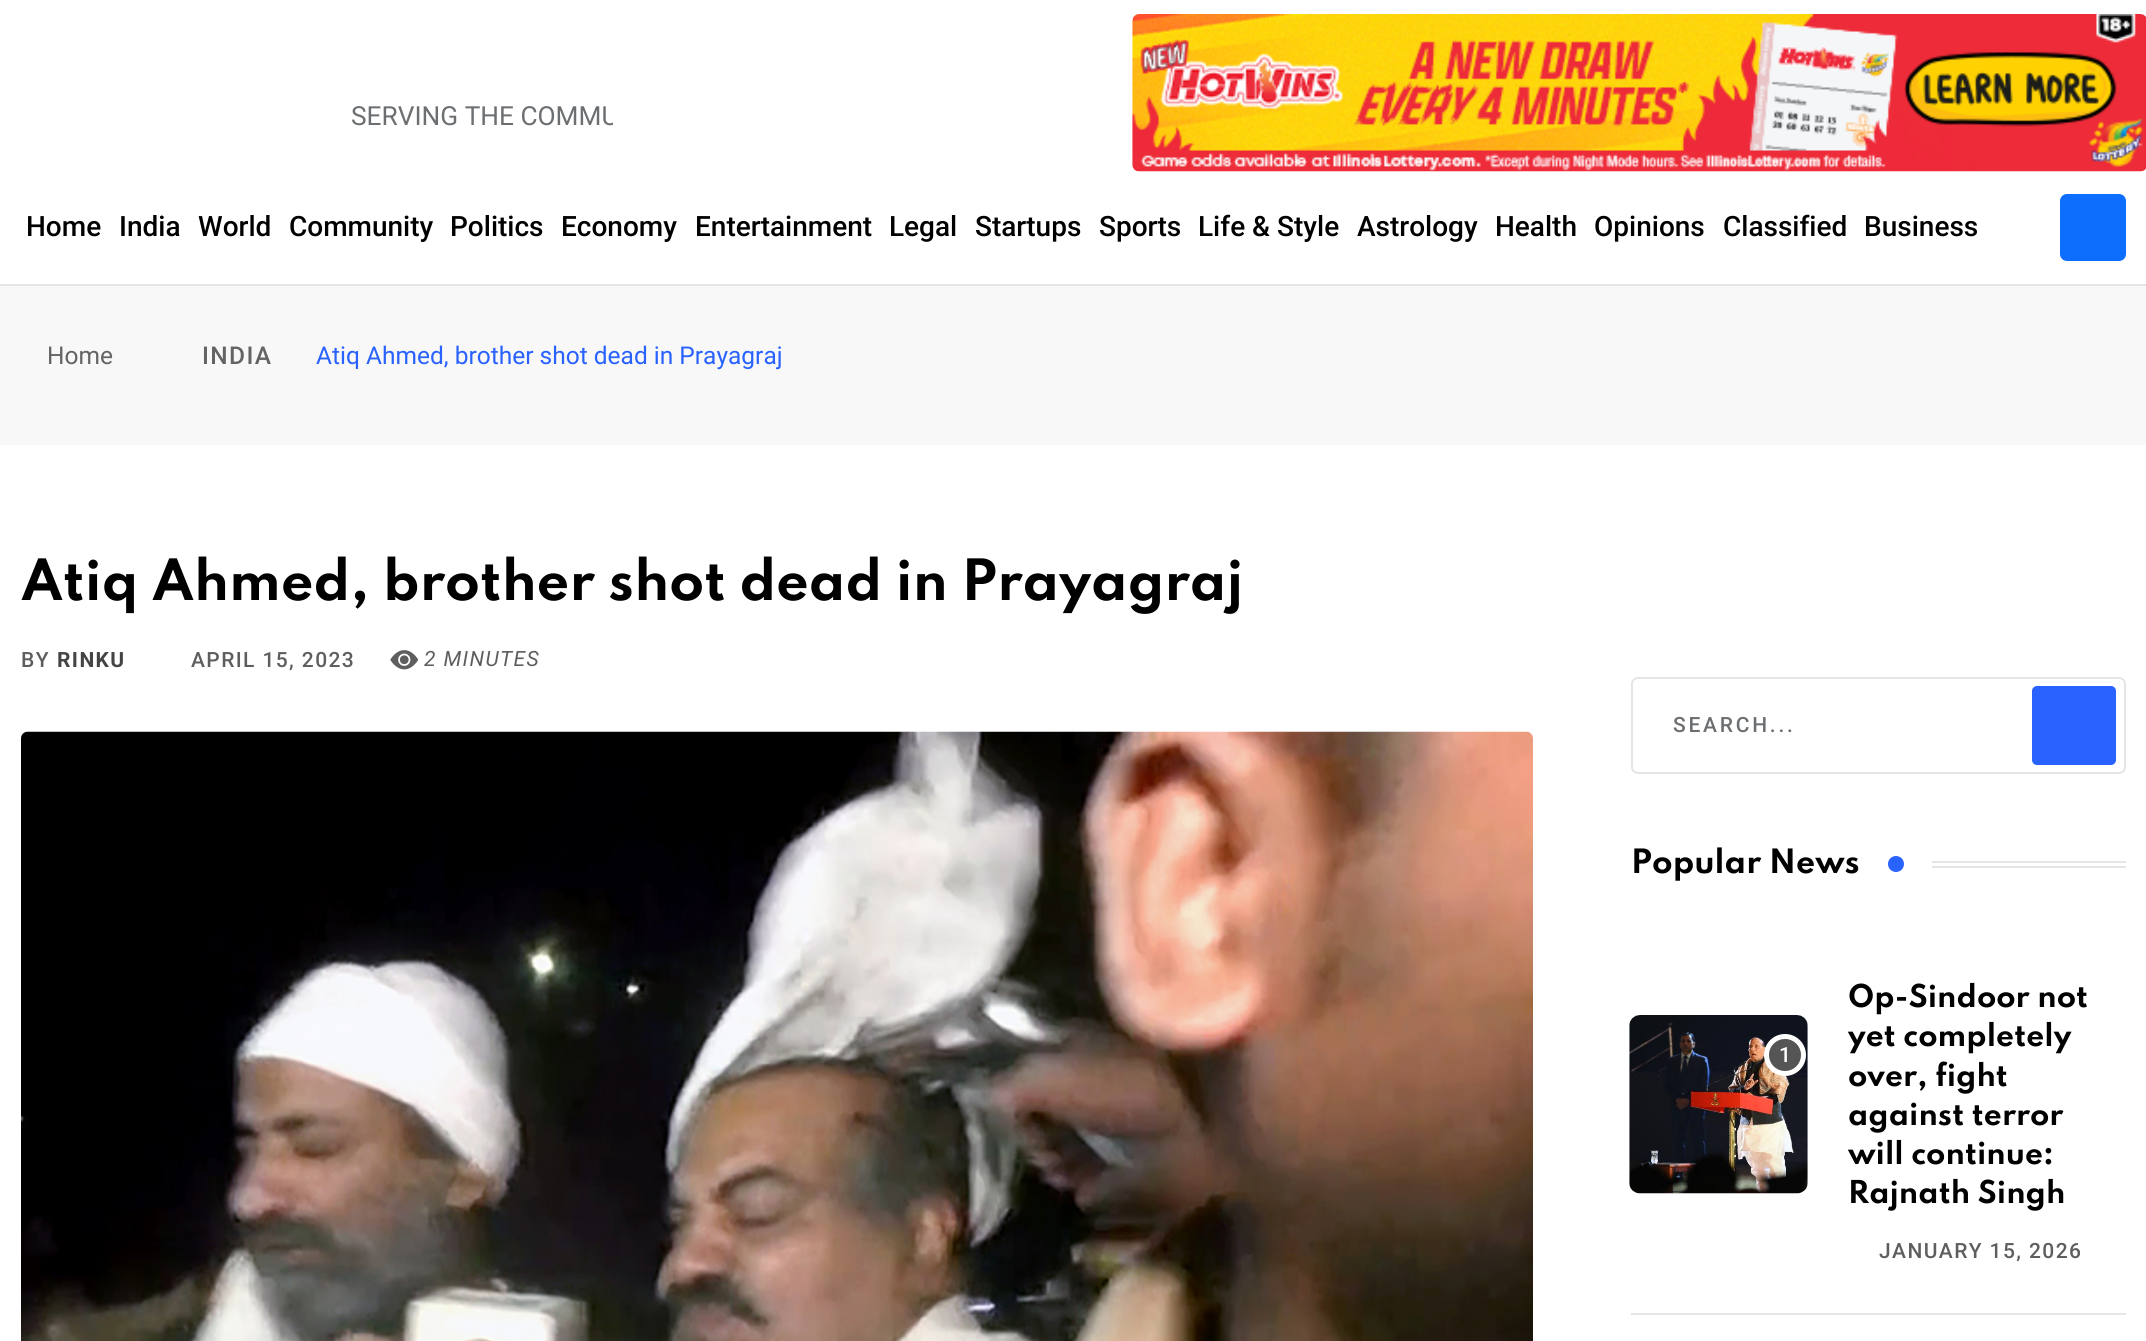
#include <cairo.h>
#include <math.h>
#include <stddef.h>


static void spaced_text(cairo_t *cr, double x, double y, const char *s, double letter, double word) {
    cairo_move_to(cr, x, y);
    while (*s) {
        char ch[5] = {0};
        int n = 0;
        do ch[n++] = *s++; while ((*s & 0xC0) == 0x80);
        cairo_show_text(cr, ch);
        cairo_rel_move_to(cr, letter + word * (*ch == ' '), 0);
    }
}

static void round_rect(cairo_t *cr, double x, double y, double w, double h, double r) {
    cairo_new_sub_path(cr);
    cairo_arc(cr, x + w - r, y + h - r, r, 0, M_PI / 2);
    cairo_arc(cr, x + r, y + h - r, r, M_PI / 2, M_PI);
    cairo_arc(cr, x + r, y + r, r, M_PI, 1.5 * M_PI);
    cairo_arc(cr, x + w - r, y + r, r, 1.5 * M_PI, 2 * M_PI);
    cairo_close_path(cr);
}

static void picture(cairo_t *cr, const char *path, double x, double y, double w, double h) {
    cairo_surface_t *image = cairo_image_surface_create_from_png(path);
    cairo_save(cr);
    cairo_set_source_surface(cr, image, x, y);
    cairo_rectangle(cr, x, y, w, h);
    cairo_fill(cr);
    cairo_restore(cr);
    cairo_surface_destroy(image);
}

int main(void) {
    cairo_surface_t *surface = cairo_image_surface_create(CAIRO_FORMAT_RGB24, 2146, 1341);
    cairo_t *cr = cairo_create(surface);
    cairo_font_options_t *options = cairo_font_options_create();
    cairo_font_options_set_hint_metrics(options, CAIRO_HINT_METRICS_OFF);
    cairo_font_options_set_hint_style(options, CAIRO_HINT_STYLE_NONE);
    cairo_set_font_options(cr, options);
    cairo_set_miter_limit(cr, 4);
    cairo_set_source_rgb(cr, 1, 1, 1);
    cairo_paint(cr);
    cairo_set_source_rgb(cr, 0.898, 0.898, 0.898);
    cairo_rectangle(cr, 0, 284, 2146, 2);
    cairo_fill(cr);
    cairo_save(cr);
    cairo_rectangle(cr, 0, 98, 613, 39);
    cairo_clip(cr);
    cairo_select_font_face(cr, "Roboto", CAIRO_FONT_SLANT_NORMAL, CAIRO_FONT_WEIGHT_NORMAL);
    cairo_set_font_size(cr, 26.25);
    cairo_set_source_rgb(cr, 0.424, 0.435, 0.447);
    cairo_move_to(cr, 351, 125);
    cairo_show_text(cr, "SERVING THE COMMU");
    cairo_restore(cr);
    picture(cr, "img1.png", 1132, 14, 1014, 158);
    cairo_select_font_face(cr, "Roboto Medium", CAIRO_FONT_SLANT_NORMAL, CAIRO_FONT_WEIGHT_NORMAL);
    cairo_set_font_size(cr, 28);
    cairo_set_source_rgb(cr, 0, 0, 0);
    cairo_move_to(cr, 26, 236);
    cairo_show_text(cr, "Home");
    cairo_move_to(cr, 119, 236);
    cairo_show_text(cr, "India");
    cairo_move_to(cr, 198, 236);
    cairo_show_text(cr, "World");
    cairo_move_to(cr, 289, 236);
    cairo_show_text(cr, "Community");
    cairo_move_to(cr, 450, 236);
    cairo_show_text(cr, "Politics");
    cairo_move_to(cr, 561, 236);
    cairo_show_text(cr, "Economy");
    cairo_move_to(cr, 695, 236);
    cairo_show_text(cr, "Entertainment");
    cairo_move_to(cr, 889, 236);
    cairo_show_text(cr, "Legal");
    cairo_move_to(cr, 975, 236);
    cairo_show_text(cr, "Startups");
    cairo_move_to(cr, 1099, 236);
    cairo_show_text(cr, "Sports");
    cairo_move_to(cr, 1198, 236);
    cairo_show_text(cr, "Life & Style");
    cairo_move_to(cr, 1357, 236);
    cairo_show_text(cr, "Astrology");
    cairo_move_to(cr, 1495, 236);
    cairo_show_text(cr, "Health");
    cairo_move_to(cr, 1594, 236);
    cairo_show_text(cr, "Opinions");
    cairo_move_to(cr, 1723, 236);
    cairo_show_text(cr, "Classified");
    cairo_move_to(cr, 1864, 236);
    cairo_show_text(cr, "Business");
    cairo_set_source_rgb(cr, 0.051, 0.431, 0.992);
    round_rect(cr, 2061, 195, 64, 65, 6);
    cairo_fill_preserve(cr);
    cairo_stroke(cr);
    cairo_set_source_rgb(cr, 0.969, 0.969, 0.969);
    cairo_rectangle(cr, 0, 286, 2146, 159);
    cairo_fill(cr);
    cairo_select_font_face(cr, "Roboto", CAIRO_FONT_SLANT_NORMAL, CAIRO_FONT_WEIGHT_NORMAL);
    cairo_set_font_size(cr, 24.5);
    cairo_set_source_rgb(cr, 0.392, 0.392, 0.392);
    cairo_move_to(cr, 47, 364);
    cairo_show_text(cr, "Home");
    cairo_select_font_face(cr, "Roboto Medium", CAIRO_FONT_SLANT_NORMAL, CAIRO_FONT_WEIGHT_NORMAL);
    spaced_text(cr, 202, 364, "INDIA", 1.4, 0);
    cairo_select_font_face(cr, "Roboto", CAIRO_FONT_SLANT_NORMAL, CAIRO_FONT_WEIGHT_NORMAL);
    cairo_set_source_rgb(cr, 0.161, 0.384, 1);
    cairo_move_to(cr, 316, 364);
    cairo_show_text(cr, "Atiq Ahmed, brother shot dead in Prayagraj");
    cairo_select_font_face(cr, "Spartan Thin", CAIRO_FONT_SLANT_NORMAL, CAIRO_FONT_WEIGHT_BOLD);
    cairo_set_font_size(cr, 50.5);
    cairo_set_source_rgb(cr, 0, 0, 0);
    cairo_move_to(cr, 21, 600);
    cairo_show_text(cr, "Atiq Ahmed, brother shot dead in Prayagraj");
    cairo_select_font_face(cr, "Roboto Medium", CAIRO_FONT_SLANT_NORMAL, CAIRO_FONT_WEIGHT_NORMAL);
    cairo_set_font_size(cr, 21);
    cairo_set_source_rgb(cr, 0.369, 0.369, 0.373);
    spaced_text(cr, 21, 667, "BY", 1.4, 0);
    cairo_select_font_face(cr, "Roboto", CAIRO_FONT_SLANT_NORMAL, CAIRO_FONT_WEIGHT_BOLD);
    cairo_set_source_rgb(cr, 0.267, 0.267, 0.267);
    spaced_text(cr, 57, 667, "RINKU", 1.4, 0);
    cairo_select_font_face(cr, "Roboto Medium", CAIRO_FONT_SLANT_NORMAL, CAIRO_FONT_WEIGHT_NORMAL);
    cairo_set_source_rgb(cr, 0.369, 0.369, 0.373);
    spaced_text(cr, 191, 667, "APRIL 15, 2023", 1.4, 0);
    picture(cr, "img2.png", 390, 650, 28, 20);
    cairo_select_font_face(cr, "Roboto", CAIRO_FONT_SLANT_ITALIC, CAIRO_FONT_WEIGHT_NORMAL);
    spaced_text(cr, 424, 666, "2 MINUTES", 1.4, 0);
    picture(cr, "img3.png", 21, 731, 1512, 610);
    round_rect(cr, 1632, 678, 493, 95, 6);
    cairo_set_source_rgb(cr, 0.898, 0.898, 0.898);
    cairo_stroke(cr);
    cairo_select_font_face(cr, "Roboto Medium", CAIRO_FONT_SLANT_NORMAL, CAIRO_FONT_WEIGHT_NORMAL);
    cairo_set_source_rgb(cr, 0.424, 0.435, 0.447);
    spaced_text(cr, 1673, 732, "SEARCH...", 2.75, 0);
    cairo_set_source_rgb(cr, 0.161, 0.384, 1);
    round_rect(cr, 2032, 686, 84, 79, 5);
    cairo_fill(cr);
    cairo_select_font_face(cr, "Spartan Thin", CAIRO_FONT_SLANT_NORMAL, CAIRO_FONT_WEIGHT_BOLD);
    cairo_set_font_size(cr, 29.75);
    cairo_set_source_rgb(cr, 0, 0, 0);
    cairo_move_to(cr, 1631, 873);
    cairo_show_text(cr, "Popular News");
    cairo_set_source_rgb(cr, 0.161, 0.384, 1);
    cairo_new_path(cr);
    cairo_arc(cr, 1896, 864, 8, 0, 2 * M_PI);
    cairo_fill(cr);
    cairo_set_source_rgb(cr, 0.898, 0.898, 0.898);
    cairo_rectangle(cr, 1932, 861, 194, 2);
    cairo_fill(cr);
    cairo_rectangle(cr, 1932, 866, 194, 2);
    cairo_fill(cr);
    cairo_rectangle(cr, 1631, 1313, 495, 2);
    cairo_fill(cr);
    picture(cr, "img4.png", 1629, 1015, 179, 179);
    cairo_set_source_rgb(cr, 0.333, 0.333, 0.333);
    cairo_arc(cr, 1785, 1055, 18.5, 0, 2 * M_PI);
    cairo_fill_preserve(cr);
    cairo_set_source_rgb(cr, 1, 1, 1);
    cairo_set_line_width(cr, 5);
    cairo_stroke(cr);
    cairo_select_font_face(cr, "Roboto Medium", CAIRO_FONT_SLANT_NORMAL, CAIRO_FONT_WEIGHT_NORMAL);
    cairo_set_font_size(cr, 21);
    cairo_move_to(cr, 1779, 1062);
    cairo_show_text(cr, "1");
    cairo_select_font_face(cr, "Spartan Thin", CAIRO_FONT_SLANT_NORMAL, CAIRO_FONT_WEIGHT_BOLD);
    cairo_set_font_size(cr, 28);
    cairo_set_source_rgb(cr, 0, 0, 0);
    cairo_move_to(cr, 1848, 1007);
    cairo_show_text(cr, "Op-Sindoor not");
    cairo_move_to(cr, 1848, 1046);
    cairo_show_text(cr, "yet completely");
    cairo_move_to(cr, 1848, 1086);
    cairo_show_text(cr, "over, fight");
    cairo_move_to(cr, 1848, 1125);
    cairo_show_text(cr, "against terror");
    cairo_move_to(cr, 1848, 1164);
    cairo_show_text(cr, "will continue:");
    cairo_move_to(cr, 1848, 1203);
    cairo_show_text(cr, "Rajnath Singh");
    cairo_select_font_face(cr, "Roboto Medium", CAIRO_FONT_SLANT_NORMAL, CAIRO_FONT_WEIGHT_NORMAL);
    cairo_set_font_size(cr, 21);
    cairo_set_source_rgb(cr, 0.369, 0.369, 0.373);
    spaced_text(cr, 1879, 1258, "JANUARY 15, 2026", 1.4, 0);
    cairo_surface_write_to_png(surface, "page.png");
    cairo_font_options_destroy(options);
    cairo_destroy(cr);
    cairo_surface_destroy(surface);
    return 0;
}
